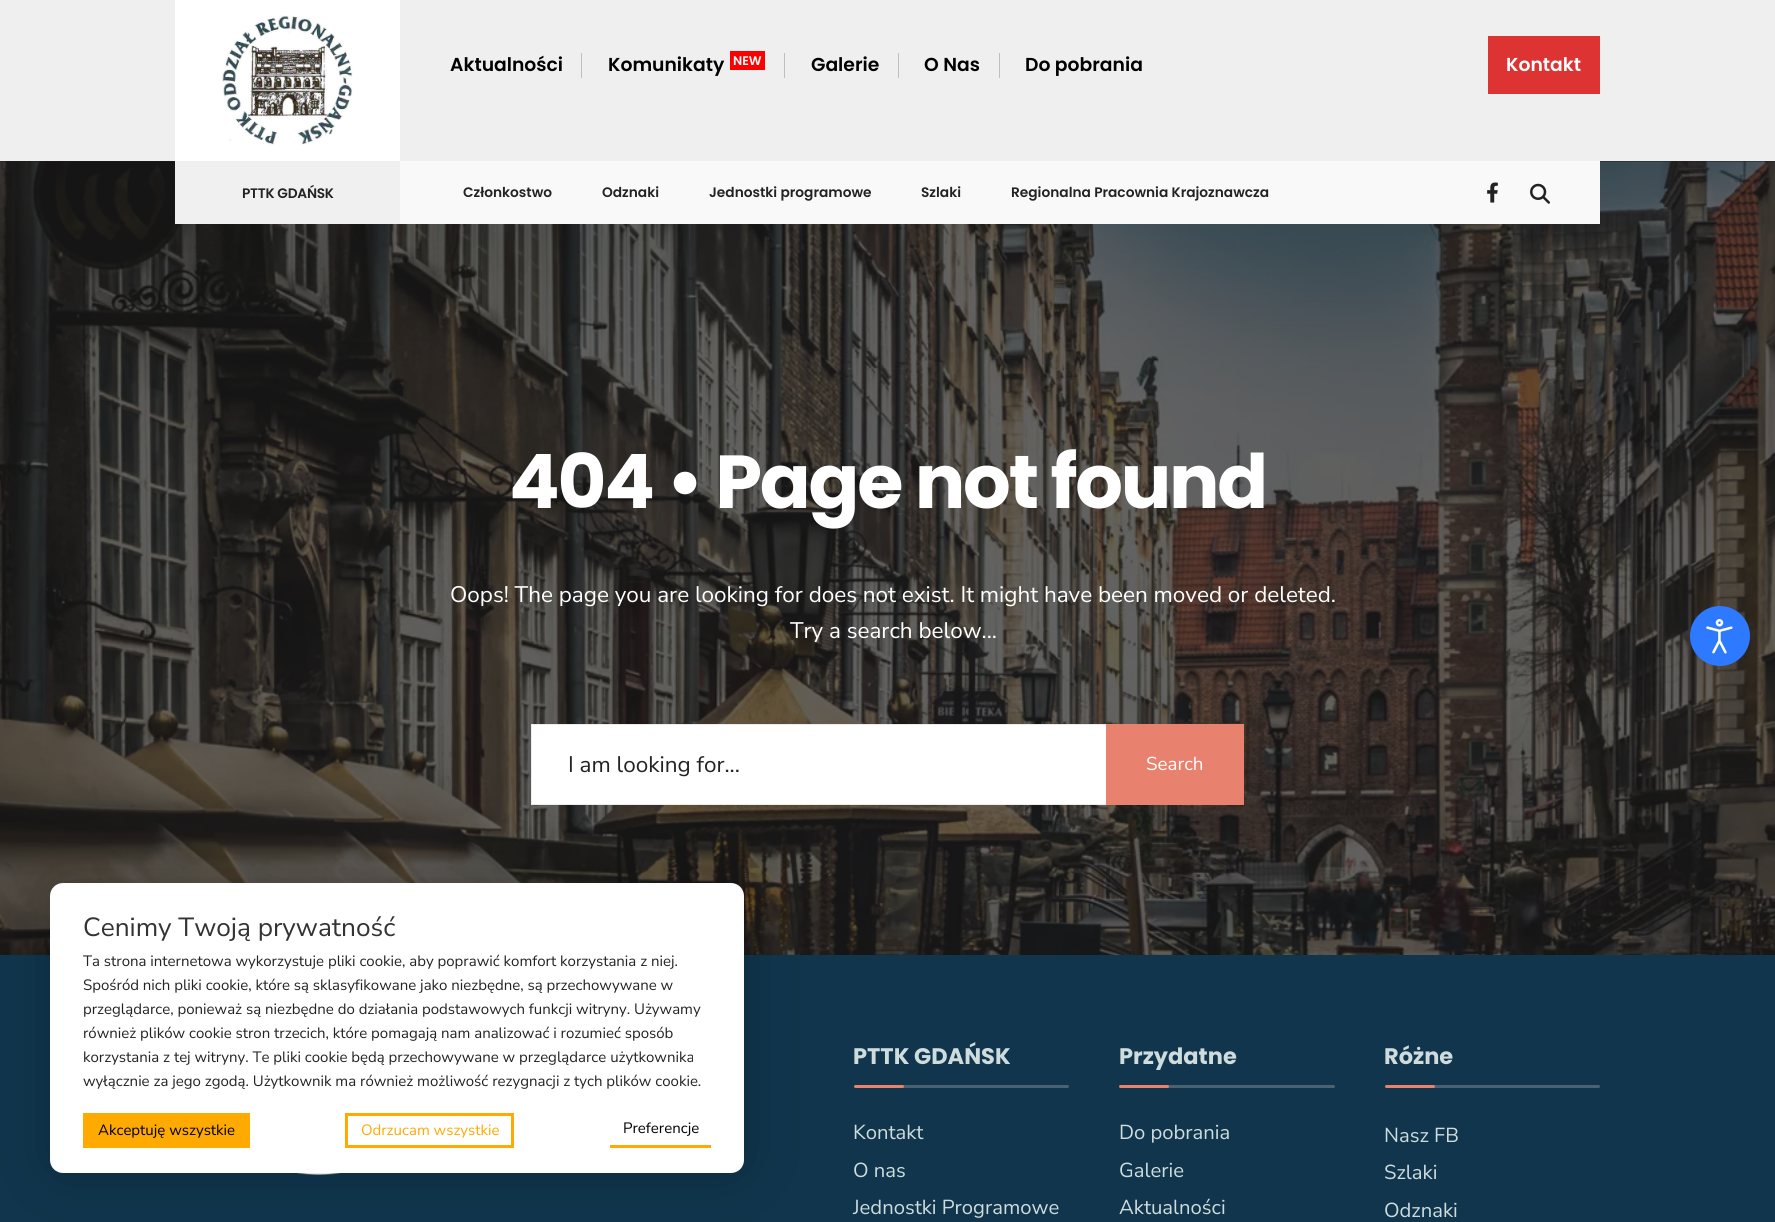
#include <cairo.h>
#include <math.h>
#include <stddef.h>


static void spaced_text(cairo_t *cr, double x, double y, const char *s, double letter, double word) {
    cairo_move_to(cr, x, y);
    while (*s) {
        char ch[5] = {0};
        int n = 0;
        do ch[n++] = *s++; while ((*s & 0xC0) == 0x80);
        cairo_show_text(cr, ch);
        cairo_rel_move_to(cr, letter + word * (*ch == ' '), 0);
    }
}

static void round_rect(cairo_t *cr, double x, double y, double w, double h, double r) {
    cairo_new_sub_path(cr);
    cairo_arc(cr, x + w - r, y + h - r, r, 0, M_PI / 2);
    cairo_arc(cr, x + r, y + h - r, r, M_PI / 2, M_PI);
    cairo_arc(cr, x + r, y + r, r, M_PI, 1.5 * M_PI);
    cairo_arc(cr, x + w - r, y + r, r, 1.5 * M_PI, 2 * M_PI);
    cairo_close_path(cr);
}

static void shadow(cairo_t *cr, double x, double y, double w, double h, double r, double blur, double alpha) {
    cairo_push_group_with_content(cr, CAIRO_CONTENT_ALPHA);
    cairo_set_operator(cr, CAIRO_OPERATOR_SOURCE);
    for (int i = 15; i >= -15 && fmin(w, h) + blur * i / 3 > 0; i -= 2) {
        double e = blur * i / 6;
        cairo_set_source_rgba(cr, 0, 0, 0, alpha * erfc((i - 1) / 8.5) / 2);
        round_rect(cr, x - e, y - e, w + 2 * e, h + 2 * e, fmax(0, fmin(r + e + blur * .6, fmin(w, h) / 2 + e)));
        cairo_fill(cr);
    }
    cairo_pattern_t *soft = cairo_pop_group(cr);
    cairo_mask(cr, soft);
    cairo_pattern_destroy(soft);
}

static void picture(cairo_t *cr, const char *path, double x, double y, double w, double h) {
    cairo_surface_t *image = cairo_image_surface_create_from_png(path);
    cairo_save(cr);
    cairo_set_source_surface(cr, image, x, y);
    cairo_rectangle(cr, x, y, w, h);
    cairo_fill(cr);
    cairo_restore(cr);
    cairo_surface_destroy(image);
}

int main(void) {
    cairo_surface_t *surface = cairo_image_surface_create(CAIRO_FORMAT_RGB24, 1775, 1222);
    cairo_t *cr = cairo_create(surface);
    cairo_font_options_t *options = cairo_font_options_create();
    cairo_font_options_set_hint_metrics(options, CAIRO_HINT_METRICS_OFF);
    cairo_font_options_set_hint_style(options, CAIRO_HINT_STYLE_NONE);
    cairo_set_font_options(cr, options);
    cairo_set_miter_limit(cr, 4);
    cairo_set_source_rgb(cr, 0.118, 0.118, 0.118);
    cairo_paint(cr);
    cairo_set_source_rgb(cr, 0.937, 0.937, 0.937);
    cairo_rectangle(cr, 0, 0, 1775, 161);
    cairo_fill(cr);
    cairo_set_source_rgb(cr, 1, 1, 1);
    cairo_rectangle(cr, 175, 0, 225, 161);
    cairo_fill(cr);
    picture(cr, "img1.png", 220, 15, 133, 130);
    cairo_select_font_face(cr, "Poppins SemiBold", CAIRO_FONT_SLANT_NORMAL, CAIRO_FONT_WEIGHT_NORMAL);
    cairo_set_font_size(cr, 18.75);
    cairo_set_source_rgb(cr, 0, 0, 0);
    cairo_move_to(cr, 450, 71);
    cairo_show_text(cr, "Aktualności");
    cairo_set_source_rgb(cr, 0.749, 0.749, 0.749);
    cairo_rectangle(cr, 581, 53, 1, 25);
    cairo_fill(cr);
    cairo_set_source_rgb(cr, 0, 0, 0);
    cairo_move_to(cr, 608, 71);
    cairo_show_text(cr, "Komunikaty");
    cairo_set_source_rgb(cr, 1, 0, 0);
    cairo_rectangle(cr, 730, 51, 35, 19);
    cairo_fill(cr);
    cairo_set_font_size(cr, 12.5);
    cairo_set_source_rgb(cr, 1, 1, 1);
    cairo_move_to(cr, 733, 65);
    cairo_show_text(cr, "NEW");
    cairo_set_source_rgb(cr, 0.749, 0.749, 0.749);
    cairo_rectangle(cr, 784, 53, 1, 25);
    cairo_fill(cr);
    cairo_set_font_size(cr, 18.75);
    cairo_set_source_rgb(cr, 0, 0, 0);
    cairo_move_to(cr, 811, 71);
    cairo_show_text(cr, "Galerie");
    cairo_set_source_rgb(cr, 0.749, 0.749, 0.749);
    cairo_rectangle(cr, 898, 53, 1, 25);
    cairo_fill(cr);
    cairo_set_source_rgb(cr, 0, 0, 0);
    cairo_move_to(cr, 924, 71);
    cairo_show_text(cr, "O Nas");
    cairo_set_source_rgb(cr, 0.749, 0.749, 0.749);
    cairo_rectangle(cr, 999, 53, 1, 25);
    cairo_fill(cr);
    cairo_set_source_rgb(cr, 0, 0, 0);
    cairo_move_to(cr, 1025, 71);
    cairo_show_text(cr, "Do pobrania");
    cairo_set_source_rgb(cr, 0.867, 0.2, 0.2);
    cairo_rectangle(cr, 1488, 36, 112, 58);
    cairo_fill(cr);
    cairo_set_source_rgb(cr, 1, 1, 1);
    cairo_move_to(cr, 1506, 71);
    cairo_show_text(cr, "Kontakt");
    picture(cr, "img4.png", 0, 161, 1775, 794);
    cairo_set_source_rgb(cr, 0.976, 0.976, 0.976);
    cairo_rectangle(cr, 400, 161, 1200, 63);
    cairo_fill(cr);
    cairo_set_source_rgb(cr, 0.941, 0.941, 0.941);
    cairo_rectangle(cr, 175, 161, 225, 63);
    cairo_fill(cr);
    cairo_set_font_size(cr, 13.75);
    cairo_set_source_rgb(cr, 0.137, 0.137, 0.137);
    spaced_text(cr, 242, 198, "PTTK GDAŃSK", -0.25, 0);
    cairo_move_to(cr, 463, 197);
    cairo_show_text(cr, "Członkostwo");
    cairo_move_to(cr, 602, 197);
    cairo_show_text(cr, "Odznaki");
    cairo_move_to(cr, 709, 197);
    cairo_show_text(cr, "Jednostki programowe");
    cairo_move_to(cr, 921, 197);
    cairo_show_text(cr, "Szlaki");
    cairo_move_to(cr, 1011, 197);
    cairo_show_text(cr, "Regionalna Pracownia Krajoznawcza");
    picture(cr, "img2.png", 1487, 182, 11, 21);
    picture(cr, "img3.png", 1530, 183, 20, 21);
    cairo_select_font_face(cr, "Poppins", CAIRO_FONT_SLANT_NORMAL, CAIRO_FONT_WEIGHT_BOLD);
    cairo_set_font_size(cr, 75);
    cairo_set_source_rgb(cr, 1, 1, 1);
    spaced_text(cr, 509, 508, "404 • Page not found", -2.25, 0);
    cairo_select_font_face(cr, "Nunito Sans", CAIRO_FONT_SLANT_NORMAL, CAIRO_FONT_WEIGHT_NORMAL);
    cairo_set_font_size(cr, 22.5);
    cairo_move_to(cr, 450, 602);
    cairo_show_text(cr, "Oops! The page you are looking for does not exist. It might have been moved or deleted.");
    cairo_move_to(cr, 790, 638);
    cairo_show_text(cr, "Try a search below...");
    cairo_rectangle(cr, 532, 725, 574, 79);
    cairo_fill(cr);
    cairo_rectangle(cr, 531.5, 724.5, 712, 80);
    cairo_set_source_rgb(cr, 0.918, 0.918, 0.918);
    cairo_set_line_width(cr, 1);
    cairo_stroke(cr);
    cairo_set_source_rgb(cr, 0.137, 0.137, 0.137);
    cairo_move_to(cr, 568, 772);
    cairo_show_text(cr, "I am looking for...");
    cairo_set_source_rgb(cr, 0.91, 0.506, 0.431);
    cairo_rectangle(cr, 1106, 724, 138, 81);
    cairo_fill(cr);
    cairo_set_font_size(cr, 18.75);
    cairo_set_source_rgb(cr, 1, 1, 1);
    cairo_move_to(cr, 1146, 770);
    cairo_show_text(cr, "Search");
    cairo_set_source_rgb(cr, 0.063, 0.208, 0.298);
    cairo_rectangle(cr, 0, 955, 1775, 267);
    cairo_fill(cr);
    picture(cr, "img5.png", 297, 1173, 44, 2);
    cairo_select_font_face(cr, "Poppins", CAIRO_FONT_SLANT_NORMAL, CAIRO_FONT_WEIGHT_BOLD);
    cairo_set_font_size(cr, 22.5);
    cairo_set_source_rgb(cr, 0.808, 0.863, 0.867);
    cairo_move_to(cr, 853, 1064);
    cairo_show_text(cr, "PTTK GDAŃSK");
    cairo_set_source_rgb(cr, 0.282, 0.384, 0.447);
    round_rect(cr, 901, 1085, 168, 3, 1.5);
    cairo_fill(cr);
    cairo_set_source_rgb(cr, 0.91, 0.506, 0.431);
    round_rect(cr, 854, 1085, 50, 3, 1.5);
    cairo_fill(cr);
    cairo_select_font_face(cr, "Nunito Sans", CAIRO_FONT_SLANT_NORMAL, CAIRO_FONT_WEIGHT_NORMAL);
    cairo_set_font_size(cr, 20.25);
    cairo_set_source_rgb(cr, 0.808, 0.863, 0.867);
    cairo_move_to(cr, 853, 1139);
    cairo_show_text(cr, "Kontakt");
    cairo_move_to(cr, 853, 1177);
    cairo_show_text(cr, "O nas");
    cairo_move_to(cr, 853, 1214);
    cairo_show_text(cr, "Jednostki Programowe");
    cairo_select_font_face(cr, "Poppins", CAIRO_FONT_SLANT_NORMAL, CAIRO_FONT_WEIGHT_BOLD);
    cairo_set_font_size(cr, 22.5);
    cairo_move_to(cr, 1119, 1064);
    cairo_show_text(cr, "Przydatne");
    cairo_set_source_rgb(cr, 0.282, 0.384, 0.447);
    round_rect(cr, 1166, 1085, 169, 3, 1.5);
    cairo_fill(cr);
    cairo_set_source_rgb(cr, 0.91, 0.506, 0.431);
    round_rect(cr, 1119, 1085, 50, 3, 1.5);
    cairo_fill(cr);
    cairo_select_font_face(cr, "Nunito Sans", CAIRO_FONT_SLANT_NORMAL, CAIRO_FONT_WEIGHT_NORMAL);
    cairo_set_font_size(cr, 20.25);
    cairo_set_source_rgb(cr, 0.808, 0.863, 0.867);
    cairo_move_to(cr, 1119, 1139);
    cairo_show_text(cr, "Do pobrania");
    cairo_move_to(cr, 1119, 1177);
    cairo_show_text(cr, "Galerie");
    cairo_move_to(cr, 1119, 1214);
    cairo_show_text(cr, "Aktualności");
    cairo_select_font_face(cr, "Poppins", CAIRO_FONT_SLANT_NORMAL, CAIRO_FONT_WEIGHT_BOLD);
    cairo_set_font_size(cr, 22.5);
    cairo_move_to(cr, 1384, 1064);
    cairo_show_text(cr, "Różne");
    cairo_set_source_rgb(cr, 0.282, 0.384, 0.447);
    round_rect(cr, 1433, 1085, 167, 3, 1.5);
    cairo_fill(cr);
    cairo_set_source_rgb(cr, 0.91, 0.506, 0.431);
    round_rect(cr, 1385, 1085, 50, 3, 1.5);
    cairo_fill(cr);
    cairo_select_font_face(cr, "Nunito Sans", CAIRO_FONT_SLANT_NORMAL, CAIRO_FONT_WEIGHT_NORMAL);
    cairo_set_font_size(cr, 20.25);
    cairo_set_source_rgb(cr, 0.808, 0.863, 0.867);
    cairo_move_to(cr, 1384, 1142);
    cairo_show_text(cr, "Nasz FB");
    cairo_move_to(cr, 1384, 1179);
    cairo_show_text(cr, "Szlaki");
    cairo_move_to(cr, 1384, 1217);
    cairo_show_text(cr, "Odznaki");
    cairo_set_source_rgb(cr, 0.176, 0.475, 1);
    cairo_new_path(cr);
    cairo_arc(cr, 1720, 636, 30, 0, 2 * M_PI);
    cairo_fill(cr);
    picture(cr, "img6.png", 1706, 619, 27, 35);
    cairo_set_source_rgb(cr, 0, 0, 0);
    shadow(cr, 50, 883, 694, 290, 13, 31, 0.19);
    cairo_set_source_rgb(cr, 1, 1, 1);
    round_rect(cr, 50, 883, 694, 290, 13);
    cairo_fill(cr);
    cairo_set_font_size(cr, 26.25);
    cairo_set_source_rgb(cr, 0.2, 0.2, 0.2);
    cairo_move_to(cr, 83, 936);
    cairo_show_text(cr, "Cenimy Twoją prywatność");
    cairo_set_font_size(cr, 15);
    cairo_set_source_rgb(cr, 0.137, 0.137, 0.137);
    cairo_move_to(cr, 83, 966);
    cairo_show_text(cr, "Ta strona internetowa wykorzystuje pliki cookie, aby poprawić komfort korzystania z niej.");
    cairo_move_to(cr, 83, 990);
    cairo_show_text(cr, "Spośród nich pliki cookie, które są sklasyfikowane jako niezbędne, są przechowywane w");
    cairo_move_to(cr, 83, 1014);
    cairo_show_text(cr, "przeglądarce, ponieważ są niezbędne do działania podstawowych funkcji witryny. Używamy");
    cairo_move_to(cr, 83, 1038);
    cairo_show_text(cr, "również plików cookie stron trzecich, które pomagają nam analizować i rozumieć sposób");
    cairo_move_to(cr, 83, 1062);
    cairo_show_text(cr, "korzystania z tej witryny. Te pliki cookie będą przechowywane w przeglądarce użytkownika");
    cairo_move_to(cr, 83, 1086);
    cairo_show_text(cr, "wyłącznie za jego zgodą. Użytkownik ma również możliwość rezygnacji z tych plików cookie.");
    cairo_set_source_rgb(cr, 1, 0.667, 0);
    cairo_rectangle(cr, 83, 1113, 167, 35);
    cairo_fill(cr);
    cairo_set_source_rgb(cr, 0, 0, 0);
    cairo_move_to(cr, 98, 1135);
    cairo_show_text(cr, "Akceptuję wszystkie");
    cairo_rectangle(cr, 346.5, 1114.5, 166, 32);
    cairo_set_source_rgb(cr, 1, 0.667, 0);
    cairo_set_line_width(cr, 3);
    cairo_stroke(cr);
    cairo_move_to(cr, 361, 1135);
    cairo_show_text(cr, "Odrzucam wszystkie");
    cairo_rectangle(cr, 610, 1145, 101, 3);
    cairo_fill(cr);
    cairo_set_source_rgb(cr, 0, 0, 0);
    cairo_move_to(cr, 623, 1133);
    cairo_show_text(cr, "Preferencje");
    cairo_surface_write_to_png(surface, "page.png");
    cairo_font_options_destroy(options);
    cairo_destroy(cr);
    cairo_surface_destroy(surface);
    return 0;
}
